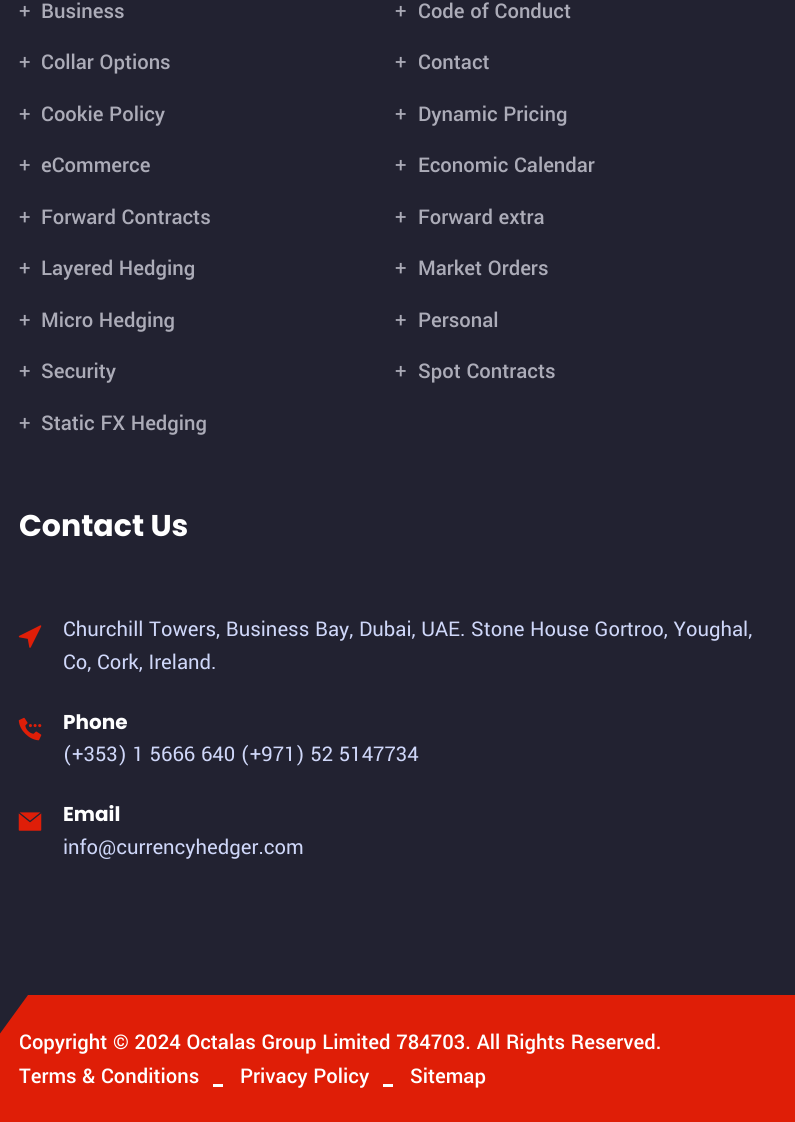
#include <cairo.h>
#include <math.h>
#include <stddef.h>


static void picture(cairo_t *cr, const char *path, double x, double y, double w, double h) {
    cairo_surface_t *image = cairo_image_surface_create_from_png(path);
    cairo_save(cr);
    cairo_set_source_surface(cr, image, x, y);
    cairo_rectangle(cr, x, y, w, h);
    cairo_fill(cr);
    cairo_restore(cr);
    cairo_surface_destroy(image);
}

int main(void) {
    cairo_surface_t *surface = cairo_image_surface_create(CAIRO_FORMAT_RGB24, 795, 1122);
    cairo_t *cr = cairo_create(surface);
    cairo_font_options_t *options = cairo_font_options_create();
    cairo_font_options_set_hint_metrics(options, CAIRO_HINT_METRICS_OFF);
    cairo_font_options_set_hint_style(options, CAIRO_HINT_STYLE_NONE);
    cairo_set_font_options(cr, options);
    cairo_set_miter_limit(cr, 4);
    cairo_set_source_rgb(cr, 0.133, 0.133, 0.192);
    cairo_paint(cr);
    cairo_select_font_face(cr, "Yantramanav", CAIRO_FONT_SLANT_NORMAL, CAIRO_FONT_WEIGHT_NORMAL);
    cairo_set_font_size(cr, 22.5);
    cairo_set_source_rgb(cr, 0.675, 0.675, 0.722);
    cairo_move_to(cr, 19, 18);
    cairo_show_text(cr, "+");
    cairo_select_font_face(cr, "Yantramanav Medium", CAIRO_FONT_SLANT_NORMAL, CAIRO_FONT_WEIGHT_NORMAL);
    cairo_move_to(cr, 41, 18);
    cairo_show_text(cr, "Business");
    cairo_select_font_face(cr, "Yantramanav", CAIRO_FONT_SLANT_NORMAL, CAIRO_FONT_WEIGHT_NORMAL);
    cairo_move_to(cr, 395, 18);
    cairo_show_text(cr, "+");
    cairo_select_font_face(cr, "Yantramanav Medium", CAIRO_FONT_SLANT_NORMAL, CAIRO_FONT_WEIGHT_NORMAL);
    cairo_move_to(cr, 418, 18);
    cairo_show_text(cr, "Code of Conduct");
    cairo_select_font_face(cr, "Yantramanav", CAIRO_FONT_SLANT_NORMAL, CAIRO_FONT_WEIGHT_NORMAL);
    cairo_move_to(cr, 19, 69);
    cairo_show_text(cr, "+");
    cairo_select_font_face(cr, "Yantramanav Medium", CAIRO_FONT_SLANT_NORMAL, CAIRO_FONT_WEIGHT_NORMAL);
    cairo_move_to(cr, 41, 69);
    cairo_show_text(cr, "Collar Options");
    cairo_select_font_face(cr, "Yantramanav", CAIRO_FONT_SLANT_NORMAL, CAIRO_FONT_WEIGHT_NORMAL);
    cairo_move_to(cr, 395, 69);
    cairo_show_text(cr, "+");
    cairo_select_font_face(cr, "Yantramanav Medium", CAIRO_FONT_SLANT_NORMAL, CAIRO_FONT_WEIGHT_NORMAL);
    cairo_move_to(cr, 418, 69);
    cairo_show_text(cr, "Contact");
    cairo_select_font_face(cr, "Yantramanav", CAIRO_FONT_SLANT_NORMAL, CAIRO_FONT_WEIGHT_NORMAL);
    cairo_move_to(cr, 19, 121);
    cairo_show_text(cr, "+");
    cairo_select_font_face(cr, "Yantramanav Medium", CAIRO_FONT_SLANT_NORMAL, CAIRO_FONT_WEIGHT_NORMAL);
    cairo_move_to(cr, 41, 121);
    cairo_show_text(cr, "Cookie Policy");
    cairo_select_font_face(cr, "Yantramanav", CAIRO_FONT_SLANT_NORMAL, CAIRO_FONT_WEIGHT_NORMAL);
    cairo_move_to(cr, 395, 121);
    cairo_show_text(cr, "+");
    cairo_select_font_face(cr, "Yantramanav Medium", CAIRO_FONT_SLANT_NORMAL, CAIRO_FONT_WEIGHT_NORMAL);
    cairo_move_to(cr, 418, 121);
    cairo_show_text(cr, "Dynamic Pricing");
    cairo_select_font_face(cr, "Yantramanav", CAIRO_FONT_SLANT_NORMAL, CAIRO_FONT_WEIGHT_NORMAL);
    cairo_move_to(cr, 19, 172);
    cairo_show_text(cr, "+");
    cairo_select_font_face(cr, "Yantramanav Medium", CAIRO_FONT_SLANT_NORMAL, CAIRO_FONT_WEIGHT_NORMAL);
    cairo_move_to(cr, 41, 172);
    cairo_show_text(cr, "eCommerce");
    cairo_select_font_face(cr, "Yantramanav", CAIRO_FONT_SLANT_NORMAL, CAIRO_FONT_WEIGHT_NORMAL);
    cairo_move_to(cr, 395, 172);
    cairo_show_text(cr, "+");
    cairo_select_font_face(cr, "Yantramanav Medium", CAIRO_FONT_SLANT_NORMAL, CAIRO_FONT_WEIGHT_NORMAL);
    cairo_move_to(cr, 418, 172);
    cairo_show_text(cr, "Economic Calendar");
    cairo_select_font_face(cr, "Yantramanav", CAIRO_FONT_SLANT_NORMAL, CAIRO_FONT_WEIGHT_NORMAL);
    cairo_move_to(cr, 19, 224);
    cairo_show_text(cr, "+");
    cairo_select_font_face(cr, "Yantramanav Medium", CAIRO_FONT_SLANT_NORMAL, CAIRO_FONT_WEIGHT_NORMAL);
    cairo_move_to(cr, 41, 224);
    cairo_show_text(cr, "Forward Contracts");
    cairo_select_font_face(cr, "Yantramanav", CAIRO_FONT_SLANT_NORMAL, CAIRO_FONT_WEIGHT_NORMAL);
    cairo_move_to(cr, 395, 224);
    cairo_show_text(cr, "+");
    cairo_select_font_face(cr, "Yantramanav Medium", CAIRO_FONT_SLANT_NORMAL, CAIRO_FONT_WEIGHT_NORMAL);
    cairo_move_to(cr, 418, 224);
    cairo_show_text(cr, "Forward extra");
    cairo_select_font_face(cr, "Yantramanav", CAIRO_FONT_SLANT_NORMAL, CAIRO_FONT_WEIGHT_NORMAL);
    cairo_move_to(cr, 19, 275);
    cairo_show_text(cr, "+");
    cairo_select_font_face(cr, "Yantramanav Medium", CAIRO_FONT_SLANT_NORMAL, CAIRO_FONT_WEIGHT_NORMAL);
    cairo_move_to(cr, 41, 275);
    cairo_show_text(cr, "Layered Hedging");
    cairo_select_font_face(cr, "Yantramanav", CAIRO_FONT_SLANT_NORMAL, CAIRO_FONT_WEIGHT_NORMAL);
    cairo_move_to(cr, 395, 275);
    cairo_show_text(cr, "+");
    cairo_select_font_face(cr, "Yantramanav Medium", CAIRO_FONT_SLANT_NORMAL, CAIRO_FONT_WEIGHT_NORMAL);
    cairo_move_to(cr, 418, 275);
    cairo_show_text(cr, "Market Orders");
    cairo_select_font_face(cr, "Yantramanav", CAIRO_FONT_SLANT_NORMAL, CAIRO_FONT_WEIGHT_NORMAL);
    cairo_move_to(cr, 19, 327);
    cairo_show_text(cr, "+");
    cairo_select_font_face(cr, "Yantramanav Medium", CAIRO_FONT_SLANT_NORMAL, CAIRO_FONT_WEIGHT_NORMAL);
    cairo_move_to(cr, 41, 327);
    cairo_show_text(cr, "Micro Hedging");
    cairo_select_font_face(cr, "Yantramanav", CAIRO_FONT_SLANT_NORMAL, CAIRO_FONT_WEIGHT_NORMAL);
    cairo_move_to(cr, 395, 327);
    cairo_show_text(cr, "+");
    cairo_select_font_face(cr, "Yantramanav Medium", CAIRO_FONT_SLANT_NORMAL, CAIRO_FONT_WEIGHT_NORMAL);
    cairo_move_to(cr, 418, 327);
    cairo_show_text(cr, "Personal");
    cairo_select_font_face(cr, "Yantramanav", CAIRO_FONT_SLANT_NORMAL, CAIRO_FONT_WEIGHT_NORMAL);
    cairo_move_to(cr, 19, 378);
    cairo_show_text(cr, "+");
    cairo_select_font_face(cr, "Yantramanav Medium", CAIRO_FONT_SLANT_NORMAL, CAIRO_FONT_WEIGHT_NORMAL);
    cairo_move_to(cr, 41, 378);
    cairo_show_text(cr, "Security");
    cairo_select_font_face(cr, "Yantramanav", CAIRO_FONT_SLANT_NORMAL, CAIRO_FONT_WEIGHT_NORMAL);
    cairo_move_to(cr, 395, 378);
    cairo_show_text(cr, "+");
    cairo_select_font_face(cr, "Yantramanav Medium", CAIRO_FONT_SLANT_NORMAL, CAIRO_FONT_WEIGHT_NORMAL);
    cairo_move_to(cr, 418, 378);
    cairo_show_text(cr, "Spot Contracts");
    cairo_select_font_face(cr, "Yantramanav", CAIRO_FONT_SLANT_NORMAL, CAIRO_FONT_WEIGHT_NORMAL);
    cairo_move_to(cr, 19, 430);
    cairo_show_text(cr, "+");
    cairo_select_font_face(cr, "Yantramanav Medium", CAIRO_FONT_SLANT_NORMAL, CAIRO_FONT_WEIGHT_NORMAL);
    cairo_move_to(cr, 41, 430);
    cairo_show_text(cr, "Static FX Hedging");
    cairo_select_font_face(cr, "Poppins", CAIRO_FONT_SLANT_NORMAL, CAIRO_FONT_WEIGHT_BOLD);
    cairo_set_font_size(cr, 30);
    cairo_set_source_rgb(cr, 1, 1, 1);
    cairo_move_to(cr, 19, 536);
    cairo_show_text(cr, "Contact Us");
    picture(cr, "img1.png", 18, 625, 24, 23);
    cairo_select_font_face(cr, "Yantramanav", CAIRO_FONT_SLANT_NORMAL, CAIRO_FONT_WEIGHT_NORMAL);
    cairo_set_font_size(cr, 22.5);
    cairo_set_source_rgb(cr, 0.812, 0.843, 0.973);
    cairo_move_to(cr, 63, 636);
    cairo_show_text(cr, "Churchill Towers, Business Bay, Dubai, UAE. Stone House Gortroo, Youghal,");
    cairo_move_to(cr, 63, 669);
    cairo_show_text(cr, "Co, Cork, Ireland.");
    picture(cr, "img2.png", 18, 717, 24, 24);
    cairo_select_font_face(cr, "Poppins", CAIRO_FONT_SLANT_NORMAL, CAIRO_FONT_WEIGHT_BOLD);
    cairo_set_font_size(cr, 20);
    cairo_set_source_rgb(cr, 1, 1, 1);
    cairo_move_to(cr, 63, 729);
    cairo_show_text(cr, "Phone");
    cairo_select_font_face(cr, "Yantramanav", CAIRO_FONT_SLANT_NORMAL, CAIRO_FONT_WEIGHT_NORMAL);
    cairo_set_font_size(cr, 22.5);
    cairo_set_source_rgb(cr, 0.812, 0.843, 0.973);
    cairo_move_to(cr, 63, 761);
    cairo_show_text(cr, "(+353) 1 5666 640 (+971) 52 5147734");
    picture(cr, "img3.png", 18, 812, 24, 19);
    cairo_select_font_face(cr, "Poppins", CAIRO_FONT_SLANT_NORMAL, CAIRO_FONT_WEIGHT_BOLD);
    cairo_set_font_size(cr, 20);
    cairo_set_source_rgb(cr, 1, 1, 1);
    cairo_move_to(cr, 63, 821);
    cairo_show_text(cr, "Email");
    cairo_select_font_face(cr, "Yantramanav", CAIRO_FONT_SLANT_NORMAL, CAIRO_FONT_WEIGHT_NORMAL);
    cairo_set_font_size(cr, 22.5);
    cairo_set_source_rgb(cr, 0.812, 0.843, 0.973);
    cairo_move_to(cr, 63, 854);
    cairo_show_text(cr, "info@currencyhedger.com");
    cairo_set_source_rgb(cr, 0.875, 0.118, 0.031);
    cairo_new_path(cr);
    cairo_move_to(cr, 28, 995);
    cairo_line_to(cr, 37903, 995);
    cairo_line_to(cr, 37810, 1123);
    cairo_line_to(cr, -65, 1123);
    cairo_close_path(cr);
    cairo_fill(cr);
    cairo_select_font_face(cr, "Yantramanav Medium", CAIRO_FONT_SLANT_NORMAL, CAIRO_FONT_WEIGHT_NORMAL);
    cairo_set_source_rgb(cr, 1, 1, 1);
    cairo_move_to(cr, 19, 1049);
    cairo_show_text(cr, "Copyright © 2024 Octalas Group Limited 784703. All Rights Reserved.");
    cairo_move_to(cr, 19, 1083);
    cairo_show_text(cr, "Terms & Conditions");
    cairo_rectangle(cr, 213, 1084, 10, 3);
    cairo_fill(cr);
    cairo_move_to(cr, 240, 1083);
    cairo_show_text(cr, "Privacy Policy");
    cairo_rectangle(cr, 383, 1084, 10, 3);
    cairo_fill(cr);
    cairo_move_to(cr, 410, 1083);
    cairo_show_text(cr, "Sitemap");
    cairo_surface_write_to_png(surface, "page.png");
    cairo_font_options_destroy(options);
    cairo_destroy(cr);
    cairo_surface_destroy(surface);
    return 0;
}
